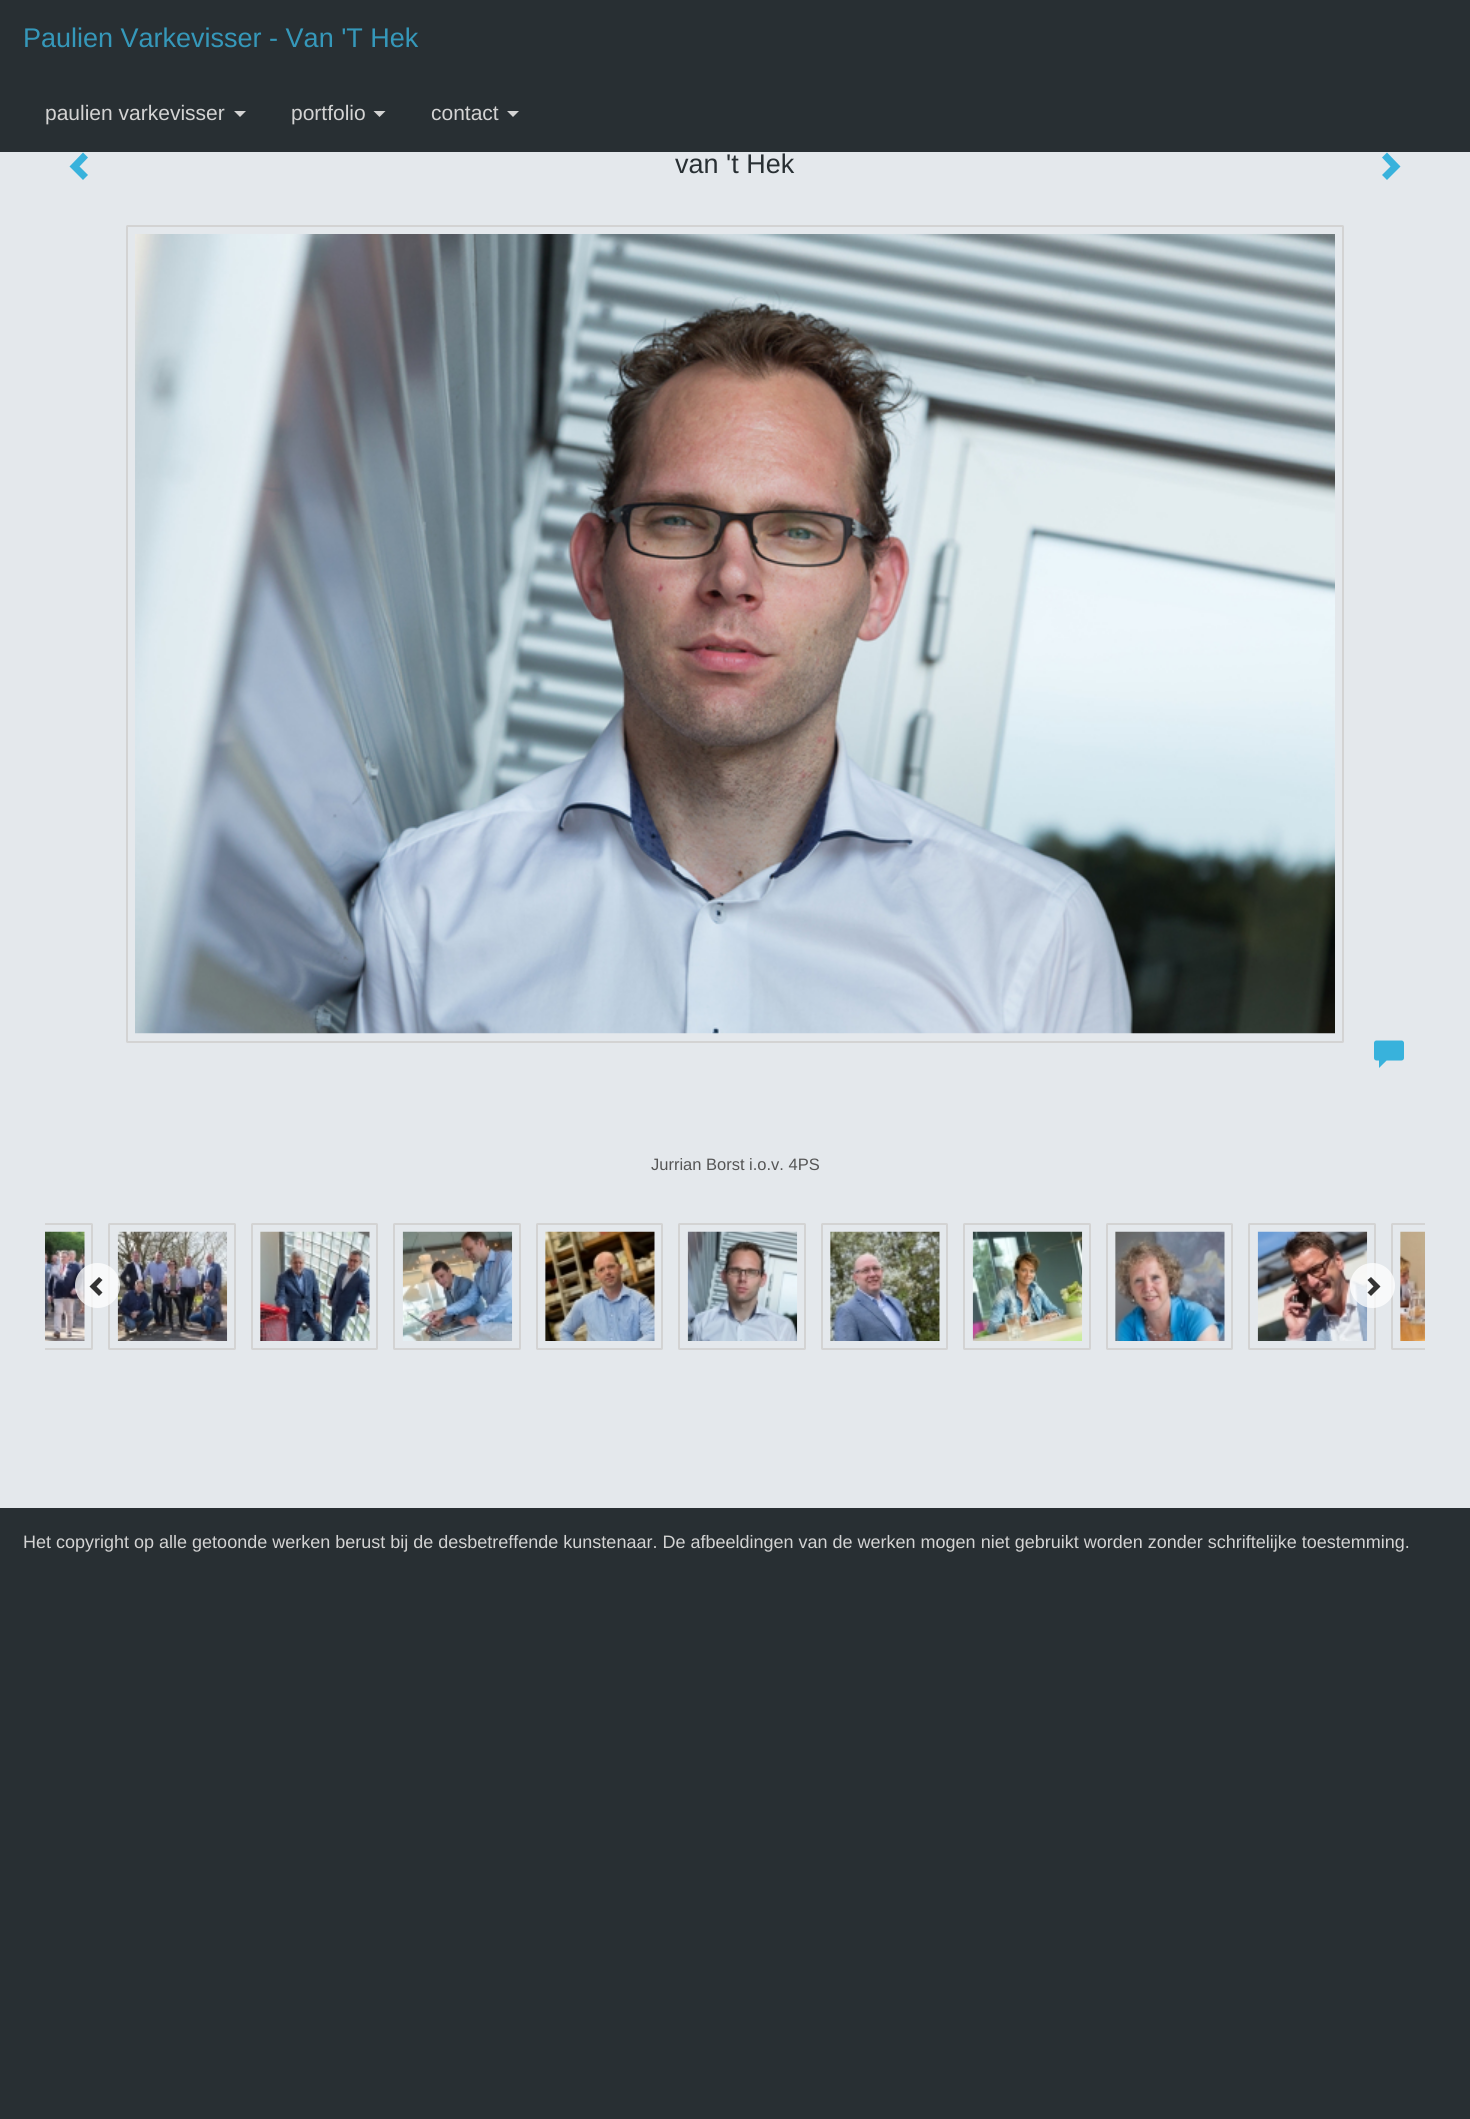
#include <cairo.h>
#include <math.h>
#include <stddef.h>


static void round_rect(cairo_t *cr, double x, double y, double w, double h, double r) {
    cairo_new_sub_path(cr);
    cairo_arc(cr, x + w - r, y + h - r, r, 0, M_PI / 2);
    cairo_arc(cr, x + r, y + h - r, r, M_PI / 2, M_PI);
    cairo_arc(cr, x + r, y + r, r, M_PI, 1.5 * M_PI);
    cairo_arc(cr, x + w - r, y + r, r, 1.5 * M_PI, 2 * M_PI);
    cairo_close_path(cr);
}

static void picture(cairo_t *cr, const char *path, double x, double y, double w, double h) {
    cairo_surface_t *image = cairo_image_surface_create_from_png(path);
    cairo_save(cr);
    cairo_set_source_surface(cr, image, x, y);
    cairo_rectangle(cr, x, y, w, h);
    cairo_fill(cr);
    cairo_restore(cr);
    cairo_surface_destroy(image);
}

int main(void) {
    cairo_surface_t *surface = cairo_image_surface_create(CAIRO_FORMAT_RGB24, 1470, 2119);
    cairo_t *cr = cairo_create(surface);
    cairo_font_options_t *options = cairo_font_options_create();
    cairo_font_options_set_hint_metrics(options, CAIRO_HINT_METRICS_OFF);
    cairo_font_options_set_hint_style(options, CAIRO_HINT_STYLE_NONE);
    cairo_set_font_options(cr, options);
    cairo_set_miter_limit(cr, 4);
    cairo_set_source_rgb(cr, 0.157, 0.184, 0.2);
    cairo_paint(cr);
    cairo_select_font_face(cr, "Liberation Sans", CAIRO_FONT_SLANT_NORMAL, CAIRO_FONT_WEIGHT_NORMAL);
    cairo_set_font_size(cr, 27);
    cairo_set_source_rgb(cr, 0.208, 0.596, 0.729);
    cairo_move_to(cr, 23, 47);
    cairo_show_text(cr, "Paulien Varkevisser - Van 'T Hek");
    cairo_set_font_size(cr, 21);
    cairo_set_source_rgb(cr, 0.827, 0.827, 0.827);
    cairo_move_to(cr, 45, 120);
    cairo_show_text(cr, "paulien varkevisser");
    cairo_new_path(cr);
    cairo_move_to(cr, 234, 111);
    cairo_line_to(cr, 246, 111);
    cairo_line_to(cr, 240, 117);
    cairo_close_path(cr);
    cairo_fill(cr);
    cairo_move_to(cr, 291, 120);
    cairo_show_text(cr, "portfolio");
    cairo_new_path(cr);
    cairo_move_to(cr, 373.5, 111);
    cairo_line_to(cr, 385.5, 111);
    cairo_line_to(cr, 379.5, 117);
    cairo_close_path(cr);
    cairo_fill(cr);
    cairo_move_to(cr, 431, 120);
    cairo_show_text(cr, "contact");
    cairo_new_path(cr);
    cairo_move_to(cr, 507, 111);
    cairo_line_to(cr, 519, 111);
    cairo_line_to(cr, 513, 117);
    cairo_close_path(cr);
    cairo_fill(cr);
    cairo_set_source_rgb(cr, 0.894, 0.91, 0.925);
    cairo_rectangle(cr, 0, 152, 1470, 1356);
    cairo_fill(cr);
    cairo_set_source_rgb(cr, 0.22, 0.698, 0.863);
    cairo_new_path(cr);
    cairo_move_to(cr, 88, 157.5);
    cairo_line_to(cr, 79.5, 166.5);
    cairo_line_to(cr, 88, 175);
    cairo_line_to(cr, 83, 180);
    cairo_line_to(cr, 69.5, 166.5);
    cairo_line_to(cr, 83, 152.5);
    cairo_close_path(cr);
    cairo_fill(cr);
    cairo_set_font_size(cr, 27);
    cairo_set_source_rgb(cr, 0.157, 0.184, 0.2);
    cairo_move_to(cr, 675, 173);
    cairo_show_text(cr, "van 't Hek");
    cairo_set_source_rgb(cr, 0.22, 0.698, 0.863);
    cairo_new_path(cr);
    cairo_move_to(cr, 1400.5, 166.5);
    cairo_line_to(cr, 1387, 180);
    cairo_line_to(cr, 1382, 175);
    cairo_line_to(cr, 1390.5, 166.5);
    cairo_line_to(cr, 1382, 157.5);
    cairo_line_to(cr, 1387, 152.5);
    cairo_close_path(cr);
    cairo_fill(cr);
    round_rect(cr, 127, 226, 1216, 816, 0.5);
    cairo_set_source_rgb(cr, 0.827, 0.827, 0.827);
    cairo_stroke(cr);
    picture(cr, "img1.png", 135, 234, 1200, 800);
    picture(cr, "img2.png", 1374, 1040, 30, 28);
    cairo_set_font_size(cr, 16.5);
    cairo_set_source_rgb(cr, 0.333, 0.333, 0.333);
    cairo_move_to(cr, 651, 1170);
    cairo_show_text(cr, "Jurrian Borst i.o.v. 4PS");
    cairo_save(cr);
    cairo_rectangle(cr, 45, 1215, 1380, 143);
    cairo_clip(cr);
    round_rect(cr, -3, 1224, 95, 125, 0.5);
    cairo_set_source_rgb(cr, 0.827, 0.827, 0.827);
    cairo_stroke(cr);
    cairo_restore(cr);
    picture(cr, "img3.png", 45, 1231, 40, 110);
    round_rect(cr, 109, 1224, 126, 125, 0.5);
    cairo_set_source_rgb(cr, 0.827, 0.827, 0.827);
    cairo_stroke(cr);
    picture(cr, "img4.png", 117, 1231, 111, 110);
    round_rect(cr, 252, 1224, 125, 125, 0.5);
    cairo_stroke(cr);
    picture(cr, "img5.png", 260, 1231, 110, 110);
    round_rect(cr, 394, 1224, 126, 125, 0.5);
    cairo_stroke(cr);
    picture(cr, "img6.png", 402, 1231, 111, 110);
    round_rect(cr, 537, 1224, 125, 125, 0.5);
    cairo_stroke(cr);
    picture(cr, "img7.png", 545, 1231, 110, 110);
    round_rect(cr, 679, 1224, 126, 125, 0.5);
    cairo_stroke(cr);
    picture(cr, "img8.png", 687, 1231, 111, 110);
    round_rect(cr, 822, 1224, 125, 125, 0.5);
    cairo_stroke(cr);
    picture(cr, "img9.png", 830, 1231, 110, 110);
    round_rect(cr, 964, 1224, 126, 125, 0.5);
    cairo_stroke(cr);
    picture(cr, "img10.png", 972, 1231, 111, 110);
    round_rect(cr, 1107, 1224, 125, 125, 0.5);
    cairo_stroke(cr);
    picture(cr, "img11.png", 1115, 1231, 110, 110);
    round_rect(cr, 1249, 1224, 126, 125, 0.5);
    cairo_stroke(cr);
    picture(cr, "img12.png", 1257, 1231, 111, 110);
    cairo_save(cr);
    cairo_rectangle(cr, 45, 1215, 1380, 143);
    cairo_clip(cr);
    round_rect(cr, 1392, 1224, 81, 125, 0.5);
    cairo_stroke(cr);
    cairo_restore(cr);
    picture(cr, "img13.png", 1400, 1231, 25, 110);
    cairo_set_source_rgba(cr, 1, 1, 1, 0.75);
    cairo_arc(cr, 97.5, 1285.5, 22.5, 0, 2 * M_PI);
    cairo_fill(cr);
    cairo_set_source_rgb(cr, 0.2, 0.2, 0.2);
    cairo_new_path(cr);
    cairo_move_to(cr, 102.5, 1280);
    cairo_line_to(cr, 96.5, 1286.5);
    cairo_line_to(cr, 102.5, 1292.5);
    cairo_line_to(cr, 99, 1296);
    cairo_line_to(cr, 89.5, 1286.5);
    cairo_line_to(cr, 99, 1277);
    cairo_close_path(cr);
    cairo_fill(cr);
    cairo_set_source_rgba(cr, 1, 1, 1, 0.75);
    cairo_arc(cr, 1372.5, 1285.5, 22.5, 0, 2 * M_PI);
    cairo_fill(cr);
    cairo_set_source_rgb(cr, 0.2, 0.2, 0.2);
    cairo_new_path(cr);
    cairo_move_to(cr, 1380.5, 1286.5);
    cairo_line_to(cr, 1371, 1296);
    cairo_line_to(cr, 1367.5, 1292.5);
    cairo_line_to(cr, 1373.5, 1286.5);
    cairo_line_to(cr, 1367.5, 1280);
    cairo_line_to(cr, 1371, 1277);
    cairo_close_path(cr);
    cairo_fill(cr);
    cairo_set_font_size(cr, 18);
    cairo_set_source_rgb(cr, 0.827, 0.827, 0.827);
    cairo_move_to(cr, 23, 1548);
    cairo_show_text(cr, "Het copyright op alle getoonde werken berust bij de desbetreffende kunstenaar. De afbeeldingen van de werken mogen niet gebruikt worden zonder schriftelijke toestemming.");
    cairo_surface_write_to_png(surface, "page.png");
    cairo_font_options_destroy(options);
    cairo_destroy(cr);
    cairo_surface_destroy(surface);
    return 0;
}
